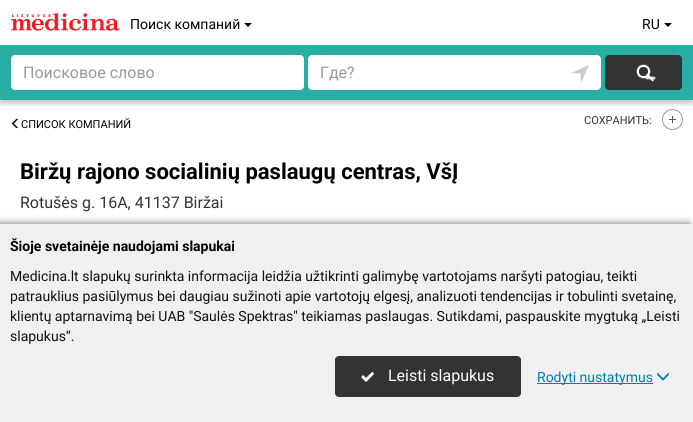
#include <cairo.h>
#include <math.h>
#include <stddef.h>


static void round_rect(cairo_t *cr, double x, double y, double w, double h, double r) {
    cairo_new_sub_path(cr);
    cairo_arc(cr, x + w - r, y + h - r, r, 0, M_PI / 2);
    cairo_arc(cr, x + r, y + h - r, r, M_PI / 2, M_PI);
    cairo_arc(cr, x + r, y + r, r, M_PI, 1.5 * M_PI);
    cairo_arc(cr, x + w - r, y + r, r, 1.5 * M_PI, 2 * M_PI);
    cairo_close_path(cr);
}

static void shadow(cairo_t *cr, double x, double y, double w, double h, double r, double blur, double alpha) {
    cairo_push_group_with_content(cr, CAIRO_CONTENT_ALPHA);
    cairo_set_operator(cr, CAIRO_OPERATOR_SOURCE);
    for (int i = 15; i >= -15 && fmin(w, h) + blur * i / 3 > 0; i -= 2) {
        double e = blur * i / 6;
        cairo_set_source_rgba(cr, 0, 0, 0, alpha * erfc((i - 1) / 8.5) / 2);
        round_rect(cr, x - e, y - e, w + 2 * e, h + 2 * e, fmax(0, fmin(r + e + blur * .6, fmin(w, h) / 2 + e)));
        cairo_fill(cr);
    }
    cairo_pattern_t *soft = cairo_pop_group(cr);
    cairo_mask(cr, soft);
    cairo_pattern_destroy(soft);
}

static void picture(cairo_t *cr, const char *path, double x, double y, double w, double h) {
    cairo_surface_t *image = cairo_image_surface_create_from_png(path);
    cairo_save(cr);
    cairo_set_source_surface(cr, image, x, y);
    cairo_rectangle(cr, x, y, w, h);
    cairo_fill(cr);
    cairo_restore(cr);
    cairo_surface_destroy(image);
}

int main(void) {
    cairo_surface_t *surface = cairo_image_surface_create(CAIRO_FORMAT_RGB24, 693, 422);
    cairo_t *cr = cairo_create(surface);
    cairo_font_options_t *options = cairo_font_options_create();
    cairo_font_options_set_hint_metrics(options, CAIRO_HINT_METRICS_OFF);
    cairo_font_options_set_hint_style(options, CAIRO_HINT_STYLE_NONE);
    cairo_set_font_options(cr, options);
    cairo_set_miter_limit(cr, 4);
    cairo_set_source_rgb(cr, 1, 1, 1);
    cairo_paint(cr);
    cairo_arc(cr, 672.5, 119.5, 10, 0, 2 * M_PI);
    cairo_set_source_rgb(cr, 0.6, 0.6, 0.6);
    cairo_set_line_width(cr, 1);
    cairo_stroke(cr);
    cairo_set_source_rgb(cr, 0, 0, 0);
    shadow(cr, 0, 4, 693, 100, 0, 2, 0.2);
    cairo_set_source_rgb(cr, 0.157, 0.682, 0.647);
    cairo_rectangle(cr, 0, 45, 693, 55);
    cairo_fill(cr);
    cairo_set_source_rgb(cr, 1, 1, 1);
    cairo_rectangle(cr, 0, 1, 693, 44);
    cairo_fill(cr);
    picture(cr, "img1.png", 11, 13, 109, 18);
    cairo_select_font_face(cr, "Roboto", CAIRO_FONT_SLANT_NORMAL, CAIRO_FONT_WEIGHT_NORMAL);
    cairo_set_font_size(cr, 14);
    cairo_set_source_rgb(cr, 0, 0, 0);
    cairo_move_to(cr, 130, 29);
    cairo_show_text(cr, "Поиск компаний");
    cairo_new_path(cr);
    cairo_move_to(cr, 244, 23);
    cairo_line_to(cr, 252, 23);
    cairo_line_to(cr, 248, 27);
    cairo_close_path(cr);
    cairo_fill(cr);
    cairo_move_to(cr, 642, 29);
    cairo_show_text(cr, "RU");
    cairo_new_path(cr);
    cairo_move_to(cr, 664, 23);
    cairo_line_to(cr, 672, 23);
    cairo_line_to(cr, 668, 27);
    cairo_close_path(cr);
    cairo_fill(cr);
    cairo_set_source_rgb(cr, 1, 1, 1);
    round_rect(cr, 11, 55, 293, 35, 4);
    cairo_fill(cr);
    cairo_set_font_size(cr, 16);
    cairo_set_source_rgb(cr, 0.6, 0.6, 0.6);
    cairo_move_to(cr, 23, 78);
    cairo_show_text(cr, "Поисковое слово");
    cairo_set_source_rgb(cr, 1, 1, 1);
    cairo_new_path(cr);
    cairo_move_to(cr, 312, 55);
    cairo_line_to(cr, 560, 55);
    cairo_line_to(cr, 560, 90);
    cairo_line_to(cr, 312, 90);
    cairo_curve_to(cr, 310, 90, 308, 88, 308, 86);
    cairo_line_to(cr, 308, 59);
    cairo_curve_to(cr, 308, 57, 310, 55, 312, 55);
    cairo_close_path(cr);
    cairo_fill(cr);
    cairo_set_source_rgb(cr, 0.6, 0.6, 0.6);
    cairo_move_to(cr, 320, 78);
    cairo_show_text(cr, "Где?");
    cairo_set_source_rgb(cr, 1, 1, 1);
    cairo_new_path(cr);
    cairo_move_to(cr, 559, 55);
    cairo_line_to(cr, 597, 55);
    cairo_curve_to(cr, 599, 55, 601, 57, 601, 59);
    cairo_line_to(cr, 601, 86);
    cairo_curve_to(cr, 601, 88, 599, 90, 597, 90);
    cairo_line_to(cr, 559, 90);
    cairo_close_path(cr);
    cairo_fill(cr);
    cairo_set_source_rgb(cr, 0.8, 0.8, 0.8);
    cairo_set_fill_rule(cr, CAIRO_FILL_RULE_EVEN_ODD);
    cairo_new_path(cr);
    cairo_move_to(cr, 581, 83);
    cairo_line_to(cr, 589, 65);
    cairo_line_to(cr, 571, 73);
    cairo_line_to(cr, 580.5, 73.5);
    cairo_close_path(cr);
    cairo_fill(cr);
    cairo_set_source_rgb(cr, 0.2, 0.2, 0.2);
    round_rect(cr, 605, 55, 77, 35, 4);
    cairo_fill(cr);
    cairo_save(cr);
    cairo_new_path(cr);
    cairo_move_to(cr, 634, 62);
    cairo_line_to(cr, 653, 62);
    cairo_line_to(cr, 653, 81);
    cairo_line_to(cr, 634, 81);
    cairo_close_path(cr);
    cairo_move_to(cr, 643, 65);
    cairo_line_to(cr, 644, 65);
    cairo_curve_to(cr, 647.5, 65, 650, 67.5, 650, 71);
    cairo_line_to(cr, 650, 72);
    cairo_curve_to(cr, 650, 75.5, 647.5, 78, 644, 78);
    cairo_line_to(cr, 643, 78);
    cairo_curve_to(cr, 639.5, 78, 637, 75.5, 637, 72);
    cairo_line_to(cr, 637, 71);
    cairo_curve_to(cr, 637, 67.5, 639.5, 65, 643, 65);
    cairo_close_path(cr);
    cairo_clip(cr);
    cairo_set_source_rgb(cr, 1, 1, 1);
    shadow(cr, 637, 65, 13, 13, 6, 0.5, 1);
    cairo_restore(cr);
    round_rect(cr, 638, 66, 11, 11, 5);
    cairo_set_source_rgb(cr, 1, 1, 1);
    cairo_set_line_width(cr, 2);
    cairo_stroke(cr);
    cairo_set_source_rgb(cr, 1, 1, 1);
    shadow(cr, 646, 77, 9, 2, 0, 0.5, 1);
    cairo_set_source_rgb(cr, 1, 1, 1);
    cairo_set_fill_rule(cr, CAIRO_FILL_RULE_WINDING);
    cairo_new_path(cr);
    cairo_move_to(cr, 647.5, 73.5);
    cairo_line_to(cr, 654, 80);
    cairo_line_to(cr, 652.5, 81.5);
    cairo_line_to(cr, 646, 75);
    cairo_close_path(cr);
    cairo_fill(cr);
    picture(cr, "img2.png", 11, 118, 7, 11);
    cairo_set_font_size(cr, 11);
    cairo_set_source_rgb(cr, 0, 0, 0);
    cairo_move_to(cr, 21, 128);
    cairo_show_text(cr, "СПИСОК КОМПАНИЙ");
    cairo_set_source_rgb(cr, 0.2, 0.2, 0.2);
    cairo_move_to(cr, 584, 124);
    cairo_show_text(cr, "СОХРАНИТЬ:");
    cairo_set_source_rgb(cr, 0.333, 0.333, 0.333);
    cairo_rectangle(cr, 669, 119, 7, 1);
    cairo_fill(cr);
    cairo_rectangle(cr, 672, 116, 1, 7);
    cairo_fill(cr);
    cairo_select_font_face(cr, "Roboto", CAIRO_FONT_SLANT_NORMAL, CAIRO_FONT_WEIGHT_BOLD);
    cairo_set_font_size(cr, 22);
    cairo_set_source_rgb(cr, 0, 0, 0);
    cairo_move_to(cr, 20, 179);
    cairo_show_text(cr, "Biržų rajono socialinių paslaugų centras, VšĮ");
    cairo_select_font_face(cr, "Roboto", CAIRO_FONT_SLANT_NORMAL, CAIRO_FONT_WEIGHT_NORMAL);
    cairo_set_font_size(cr, 16);
    cairo_set_source_rgb(cr, 0.2, 0.2, 0.2);
    cairo_move_to(cr, 20, 208);
    cairo_show_text(cr, "Rotušės g. 16A, 41137 Biržai");
    cairo_set_source_rgb(cr, 0, 0, 0);
    shadow(cr, -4, 224, 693, 198, 0, 4, 0.6);
    cairo_set_source_rgb(cr, 0.941, 0.941, 0.941);
    cairo_rectangle(cr, 0, 224, 693, 198);
    cairo_fill(cr);
    cairo_select_font_face(cr, "Roboto", CAIRO_FONT_SLANT_NORMAL, CAIRO_FONT_WEIGHT_BOLD);
    cairo_set_font_size(cr, 14);
    cairo_set_source_rgb(cr, 0, 0, 0);
    cairo_move_to(cr, 10, 251);
    cairo_show_text(cr, "Šioje svetainėje naudojami slapukai");
    cairo_select_font_face(cr, "Roboto", CAIRO_FONT_SLANT_NORMAL, CAIRO_FONT_WEIGHT_NORMAL);
    cairo_set_source_rgb(cr, 0.067, 0.067, 0.067);
    cairo_move_to(cr, 10, 281);
    cairo_show_text(cr, "Medicina.lt slapukų surinkta informacija leidžia užtikrinti galimybę vartotojams naršyti patogiau, teikti");
    cairo_move_to(cr, 10, 301);
    cairo_show_text(cr, "patrauklius pasiūlymus bei daugiau sužinoti apie vartotojų elgesį, analizuoti tendencijas ir tobulinti svetainę,");
    cairo_move_to(cr, 10, 321);
    cairo_show_text(cr, "klientų aptarnavimą bei UAB \"Saulės Spektras\" teikiamas paslaugas. Sutikdami, paspauskite mygtuką „Leisti");
    cairo_move_to(cr, 10, 341);
    cairo_show_text(cr, "slapukus“.");
    cairo_set_source_rgb(cr, 0.2, 0.2, 0.2);
    round_rect(cr, 335.5, 356.5, 185, 40, 3.5);
    cairo_fill_preserve(cr);
    cairo_set_line_width(cr, 1);
    cairo_stroke(cr);
    picture(cr, "img3.png", 361, 371, 13, 11);
    cairo_set_font_size(cr, 16);
    cairo_set_source_rgb(cr, 1, 1, 1);
    cairo_move_to(cr, 388, 381);
    cairo_show_text(cr, "Leisti slapukus");
    cairo_set_source_rgb(cr, 0, 0.486, 0.682);
    cairo_rectangle(cr, 537, 383, 116, 1);
    cairo_fill(cr);
    cairo_set_font_size(cr, 14);
    cairo_move_to(cr, 537, 382);
    cairo_show_text(cr, "Rodyti nustatymus");
    picture(cr, "img4.png", 657, 372, 12, 9);
    cairo_surface_write_to_png(surface, "page.png");
    cairo_font_options_destroy(options);
    cairo_destroy(cr);
    cairo_surface_destroy(surface);
    return 0;
}
